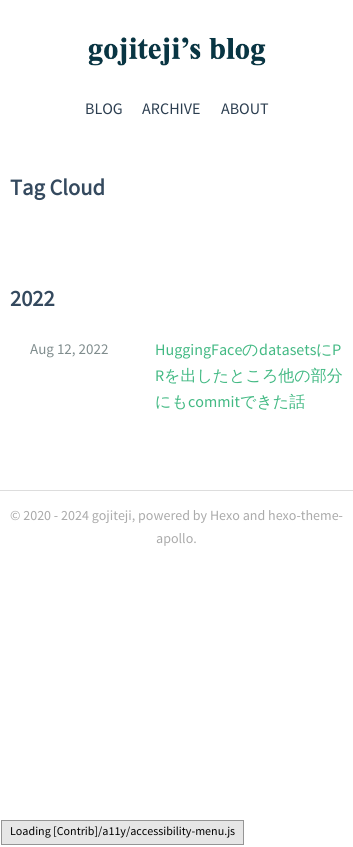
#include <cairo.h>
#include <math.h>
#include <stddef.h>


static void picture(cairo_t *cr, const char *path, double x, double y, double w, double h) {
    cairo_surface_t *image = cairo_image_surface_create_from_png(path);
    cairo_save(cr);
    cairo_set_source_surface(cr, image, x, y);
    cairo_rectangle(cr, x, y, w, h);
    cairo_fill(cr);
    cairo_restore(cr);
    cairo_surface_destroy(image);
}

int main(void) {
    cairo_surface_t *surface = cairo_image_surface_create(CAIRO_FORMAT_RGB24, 353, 847);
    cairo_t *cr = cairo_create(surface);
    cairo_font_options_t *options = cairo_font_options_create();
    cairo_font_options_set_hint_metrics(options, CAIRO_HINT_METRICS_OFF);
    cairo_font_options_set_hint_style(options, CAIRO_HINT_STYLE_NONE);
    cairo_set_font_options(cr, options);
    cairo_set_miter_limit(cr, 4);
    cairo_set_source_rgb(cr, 1, 1, 1);
    cairo_paint(cr);
    picture(cr, "img1.png", 88, 37, 178, 29);
    cairo_select_font_face(cr, "Source Sans Pro", CAIRO_FONT_SLANT_NORMAL, CAIRO_FONT_WEIGHT_NORMAL);
    cairo_set_font_size(cr, 16);
    cairo_set_source_rgb(cr, 0.173, 0.243, 0.314);
    cairo_move_to(cr, 85, 114);
    cairo_show_text(cr, "BLOG");
    cairo_move_to(cr, 142, 114);
    cairo_show_text(cr, "ARCHIVE");
    cairo_move_to(cr, 221, 114);
    cairo_show_text(cr, "ABOUT");
    cairo_select_font_face(cr, "Source Sans Pro", CAIRO_FONT_SLANT_NORMAL, CAIRO_FONT_WEIGHT_BOLD);
    cairo_set_font_size(cr, 22.5);
    cairo_set_source_rgb(cr, 0.204, 0.286, 0.369);
    cairo_move_to(cr, 10, 195);
    cairo_show_text(cr, "Tag Cloud");
    cairo_move_to(cr, 10, 306);
    cairo_show_text(cr, "2022");
    cairo_select_font_face(cr, "Source Sans Pro", CAIRO_FONT_SLANT_NORMAL, CAIRO_FONT_WEIGHT_NORMAL);
    cairo_set_font_size(cr, 15);
    cairo_set_source_rgb(cr, 0.498, 0.549, 0.553);
    cairo_move_to(cr, 30, 354);
    cairo_show_text(cr, "Aug 12, 2022");
    cairo_set_font_size(cr, 16);
    cairo_set_source_rgb(cr, 0.259, 0.725, 0.514);
    cairo_move_to(cr, 155, 355);
    cairo_show_text(cr, "HuggingFace");
    cairo_select_font_face(cr, "WenQuanYi Zen Hei Medium", CAIRO_FONT_SLANT_NORMAL, CAIRO_FONT_WEIGHT_NORMAL);
    cairo_move_to(cr, 242, 355);
    cairo_show_text(cr, "の");
    cairo_select_font_face(cr, "Source Sans Pro", CAIRO_FONT_SLANT_NORMAL, CAIRO_FONT_WEIGHT_NORMAL);
    cairo_move_to(cr, 259, 355);
    cairo_show_text(cr, "datasets");
    cairo_select_font_face(cr, "WenQuanYi Zen Hei Medium", CAIRO_FONT_SLANT_NORMAL, CAIRO_FONT_WEIGHT_NORMAL);
    cairo_move_to(cr, 316, 355);
    cairo_show_text(cr, "に");
    cairo_select_font_face(cr, "Source Sans Pro", CAIRO_FONT_SLANT_NORMAL, CAIRO_FONT_WEIGHT_NORMAL);
    cairo_move_to(cr, 332, 355);
    cairo_show_text(cr, "P");
    cairo_move_to(cr, 155, 381);
    cairo_show_text(cr, "R");
    cairo_select_font_face(cr, "WenQuanYi Zen Hei Medium", CAIRO_FONT_SLANT_NORMAL, CAIRO_FONT_WEIGHT_NORMAL);
    cairo_move_to(cr, 164, 381);
    cairo_show_text(cr, "を出したところ他の部分");
    cairo_move_to(cr, 155, 407);
    cairo_show_text(cr, "にも");
    cairo_select_font_face(cr, "Source Sans Pro", CAIRO_FONT_SLANT_NORMAL, CAIRO_FONT_WEIGHT_NORMAL);
    cairo_move_to(cr, 188, 407);
    cairo_show_text(cr, "commit");
    cairo_select_font_face(cr, "WenQuanYi Zen Hei Medium", CAIRO_FONT_SLANT_NORMAL, CAIRO_FONT_WEIGHT_NORMAL);
    cairo_move_to(cr, 240, 407);
    cairo_show_text(cr, "できた話");
    cairo_set_source_rgb(cr, 0.867, 0.867, 0.867);
    cairo_rectangle(cr, 0, 490, 353, 1);
    cairo_fill(cr);
    cairo_select_font_face(cr, "Source Sans Pro", CAIRO_FONT_SLANT_NORMAL, CAIRO_FONT_WEIGHT_NORMAL);
    cairo_set_font_size(cr, 14);
    cairo_set_source_rgb(cr, 0.667, 0.667, 0.667);
    cairo_move_to(cr, 10, 520);
    cairo_show_text(cr, "© 2020 - 2024 gojiteji, powered by Hexo and hexo-theme-");
    cairo_move_to(cr, 156, 543);
    cairo_show_text(cr, "apollo.");
    cairo_set_source_rgb(cr, 0.902, 0.902, 0.902);
    cairo_rectangle(cr, 1.5, 820.5, 242, 24);
    cairo_fill_preserve(cr);
    cairo_set_source_rgb(cr, 0.584, 0.584, 0.584);
    cairo_set_line_width(cr, 1);
    cairo_stroke(cr);
    cairo_set_font_size(cr, 12);
    cairo_set_source_rgb(cr, 0, 0, 0);
    cairo_move_to(cr, 10, 835);
    cairo_show_text(cr, "Loading [Contrib]/a11y/accessibility-menu.js");
    cairo_surface_write_to_png(surface, "page.png");
    cairo_font_options_destroy(options);
    cairo_destroy(cr);
    cairo_surface_destroy(surface);
    return 0;
}
